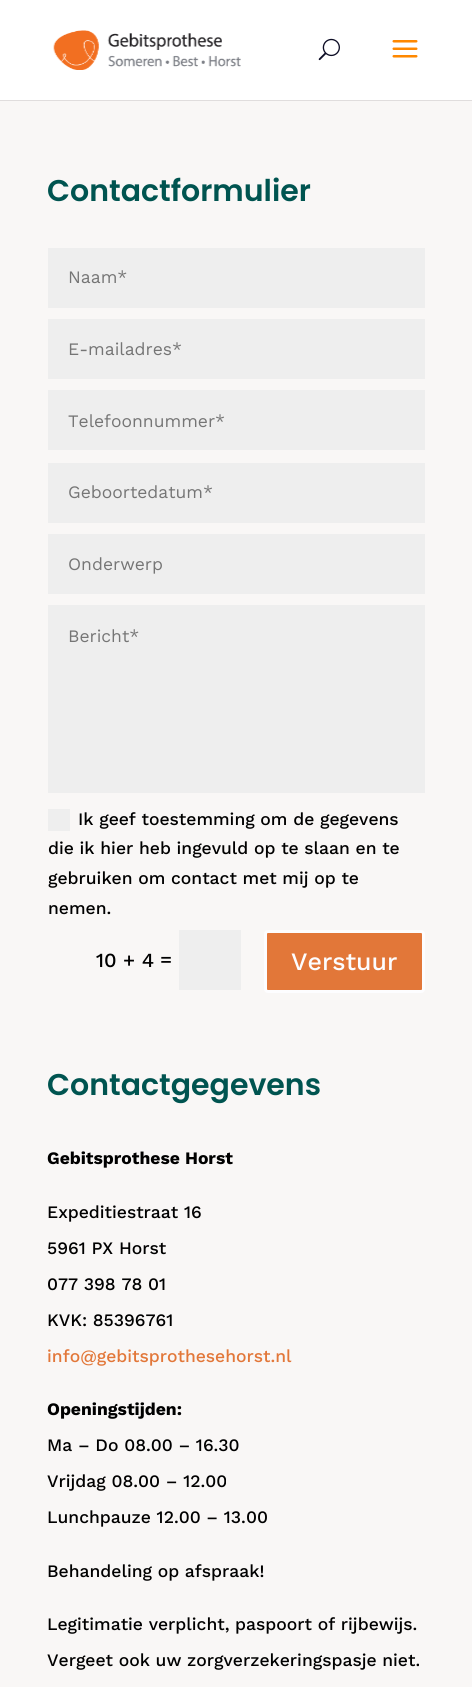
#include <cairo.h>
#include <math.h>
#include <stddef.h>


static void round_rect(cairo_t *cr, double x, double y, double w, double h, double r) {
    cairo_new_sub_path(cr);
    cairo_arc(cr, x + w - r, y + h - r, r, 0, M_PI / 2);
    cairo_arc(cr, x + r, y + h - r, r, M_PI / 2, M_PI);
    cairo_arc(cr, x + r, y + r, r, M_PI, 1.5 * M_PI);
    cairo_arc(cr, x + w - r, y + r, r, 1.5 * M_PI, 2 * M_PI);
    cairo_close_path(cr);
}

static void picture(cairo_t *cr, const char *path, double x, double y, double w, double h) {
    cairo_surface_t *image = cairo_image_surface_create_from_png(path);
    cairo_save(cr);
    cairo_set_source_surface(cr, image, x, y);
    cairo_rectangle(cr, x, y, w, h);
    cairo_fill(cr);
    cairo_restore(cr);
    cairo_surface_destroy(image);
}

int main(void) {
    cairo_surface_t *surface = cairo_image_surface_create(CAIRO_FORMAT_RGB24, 472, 1687);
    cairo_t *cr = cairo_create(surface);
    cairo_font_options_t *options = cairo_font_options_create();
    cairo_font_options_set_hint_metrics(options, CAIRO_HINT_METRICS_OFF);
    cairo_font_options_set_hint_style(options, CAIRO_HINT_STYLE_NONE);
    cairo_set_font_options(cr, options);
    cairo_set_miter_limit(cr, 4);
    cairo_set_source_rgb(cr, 0.976, 0.965, 0.961);
    cairo_paint(cr);
    cairo_set_source_rgb(cr, 0.878, 0.867, 0.867);
    cairo_new_path(cr);
    cairo_move_to(cr, 0, 100);
    cairo_line_to(cr, 0, 101);
    cairo_line_to(cr, 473, 101);
    cairo_line_to(cr, 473, 1);
    cairo_line_to(cr, 472, 1);
    cairo_line_to(cr, 472, 100);
    cairo_close_path(cr);
    cairo_fill(cr);
    cairo_set_source_rgb(cr, 1, 1, 1);
    cairo_rectangle(cr, 0, 0, 472, 100);
    cairo_fill(cr);
    picture(cr, "img1.png", 53, 30, 188, 40);
    picture(cr, "img2.png", 318, 38, 22, 23);
    picture(cr, "img3.png", 392, 40, 26, 18);
    cairo_select_font_face(cr, "Poppins SemiBold", CAIRO_FONT_SLANT_NORMAL, CAIRO_FONT_WEIGHT_NORMAL);
    cairo_set_font_size(cr, 30);
    cairo_set_source_rgb(cr, 0, 0.329, 0.314);
    cairo_move_to(cr, 47, 201);
    cairo_show_text(cr, "Contactformulier");
    cairo_set_source_rgb(cr, 0.933, 0.933, 0.933);
    cairo_rectangle(cr, 48, 248, 377, 60);
    cairo_fill(cr);
    cairo_select_font_face(cr, "Work Sans", CAIRO_FONT_SLANT_NORMAL, CAIRO_FONT_WEIGHT_NORMAL);
    cairo_set_font_size(cr, 17.5);
    cairo_set_source_rgb(cr, 0.459, 0.459, 0.459);
    cairo_move_to(cr, 68, 283);
    cairo_show_text(cr, "Naam*");
    cairo_set_source_rgb(cr, 0.933, 0.933, 0.933);
    cairo_rectangle(cr, 48, 319, 377, 60);
    cairo_fill(cr);
    cairo_set_source_rgb(cr, 0.459, 0.459, 0.459);
    cairo_move_to(cr, 68, 355);
    cairo_show_text(cr, "E-mailadres*");
    cairo_set_source_rgb(cr, 0.933, 0.933, 0.933);
    cairo_rectangle(cr, 48, 390, 377, 60);
    cairo_fill(cr);
    cairo_set_source_rgb(cr, 0.459, 0.459, 0.459);
    cairo_move_to(cr, 68, 427);
    cairo_show_text(cr, "Telefoonnummer*");
    cairo_set_source_rgb(cr, 0.933, 0.933, 0.933);
    cairo_rectangle(cr, 48, 463, 377, 60);
    cairo_fill(cr);
    cairo_set_source_rgb(cr, 0.459, 0.459, 0.459);
    cairo_move_to(cr, 68, 498);
    cairo_show_text(cr, "Geboortedatum*");
    cairo_set_source_rgb(cr, 0.933, 0.933, 0.933);
    cairo_rectangle(cr, 48, 534, 377, 60);
    cairo_fill(cr);
    cairo_set_source_rgb(cr, 0.459, 0.459, 0.459);
    cairo_move_to(cr, 68, 570);
    cairo_show_text(cr, "Onderwerp");
    cairo_set_source_rgb(cr, 0.933, 0.933, 0.933);
    cairo_rectangle(cr, 48, 605, 377, 188);
    cairo_fill(cr);
    cairo_set_source_rgb(cr, 0.459, 0.459, 0.459);
    cairo_move_to(cr, 68, 642);
    cairo_show_text(cr, "Bericht*");
    cairo_set_source_rgb(cr, 0.933, 0.933, 0.933);
    cairo_rectangle(cr, 48, 809, 22, 22);
    cairo_fill(cr);
    cairo_select_font_face(cr, "Work Sans Medium", CAIRO_FONT_SLANT_NORMAL, CAIRO_FONT_WEIGHT_NORMAL);
    cairo_set_source_rgb(cr, 0, 0, 0);
    cairo_move_to(cr, 78, 825);
    cairo_show_text(cr, "Ik geef toestemming om de gegevens");
    cairo_move_to(cr, 48, 854);
    cairo_show_text(cr, "die ik hier heb ingevuld op te slaan en te");
    cairo_move_to(cr, 48, 884);
    cairo_show_text(cr, "gebruiken om contact met mij op te");
    cairo_move_to(cr, 48, 914);
    cairo_show_text(cr, "nemen.");
    cairo_set_font_size(cr, 20);
    cairo_move_to(cr, 96, 967);
    cairo_show_text(cr, "10 + 4");
    cairo_move_to(cr, 160, 966);
    cairo_show_text(cr, "=");
    cairo_set_source_rgb(cr, 0.933, 0.933, 0.933);
    cairo_rectangle(cr, 179, 930, 62, 60);
    cairo_fill(cr);
    cairo_set_source_rgb(cr, 0.886, 0.467, 0.224);
    round_rect(cr, 265.5, 931.5, 158, 60, 2.5);
    cairo_fill_preserve(cr);
    cairo_set_source_rgb(cr, 0.992, 0.992, 1);
    cairo_set_line_width(cr, 3);
    cairo_stroke(cr);
    cairo_set_font_size(cr, 25);
    cairo_move_to(cr, 291, 970);
    cairo_show_text(cr, "Verstuur");
    cairo_select_font_face(cr, "Poppins SemiBold", CAIRO_FONT_SLANT_NORMAL, CAIRO_FONT_WEIGHT_NORMAL);
    cairo_set_font_size(cr, 30);
    cairo_set_source_rgb(cr, 0, 0.329, 0.314);
    cairo_move_to(cr, 47, 1095);
    cairo_show_text(cr, "Contactgegevens");
    cairo_select_font_face(cr, "Work Sans", CAIRO_FONT_SLANT_NORMAL, CAIRO_FONT_WEIGHT_BOLD);
    cairo_set_font_size(cr, 17.5);
    cairo_set_source_rgb(cr, 0, 0, 0);
    cairo_move_to(cr, 47, 1164);
    cairo_show_text(cr, "Gebitsprothese Horst");
    cairo_select_font_face(cr, "Work Sans Medium", CAIRO_FONT_SLANT_NORMAL, CAIRO_FONT_WEIGHT_NORMAL);
    cairo_move_to(cr, 47, 1218);
    cairo_show_text(cr, "Expeditiestraat 16");
    cairo_move_to(cr, 47, 1254);
    cairo_show_text(cr, "5961 PX Horst");
    cairo_move_to(cr, 47, 1290);
    cairo_show_text(cr, "077 398 78 01");
    cairo_move_to(cr, 47, 1326);
    cairo_show_text(cr, "KVK: 85396761");
    cairo_set_source_rgb(cr, 0.886, 0.467, 0.224);
    cairo_move_to(cr, 47, 1362);
    cairo_show_text(cr, "info@gebitsprothesehorst.nl");
    cairo_select_font_face(cr, "Work Sans", CAIRO_FONT_SLANT_NORMAL, CAIRO_FONT_WEIGHT_BOLD);
    cairo_set_source_rgb(cr, 0, 0, 0);
    cairo_move_to(cr, 47, 1415);
    cairo_show_text(cr, "Openingstijden:");
    cairo_select_font_face(cr, "Work Sans Medium", CAIRO_FONT_SLANT_NORMAL, CAIRO_FONT_WEIGHT_NORMAL);
    cairo_move_to(cr, 47, 1451);
    cairo_show_text(cr, "Ma – Do 08.00 – 16.30");
    cairo_move_to(cr, 47, 1487);
    cairo_show_text(cr, "Vrijdag 08.00 – 12.00");
    cairo_move_to(cr, 47, 1523);
    cairo_show_text(cr, "Lunchpauze 12.00 – 13.00");
    cairo_move_to(cr, 47, 1577);
    cairo_show_text(cr, "Behandeling op afspraak!");
    cairo_move_to(cr, 47, 1630);
    cairo_show_text(cr, "Legitimatie verplicht, paspoort of rijbewijs.");
    cairo_move_to(cr, 47, 1666);
    cairo_show_text(cr, "Vergeet ook uw zorgverzekeringspasje niet.");
    cairo_surface_write_to_png(surface, "page.png");
    cairo_font_options_destroy(options);
    cairo_destroy(cr);
    cairo_surface_destroy(surface);
    return 0;
}
